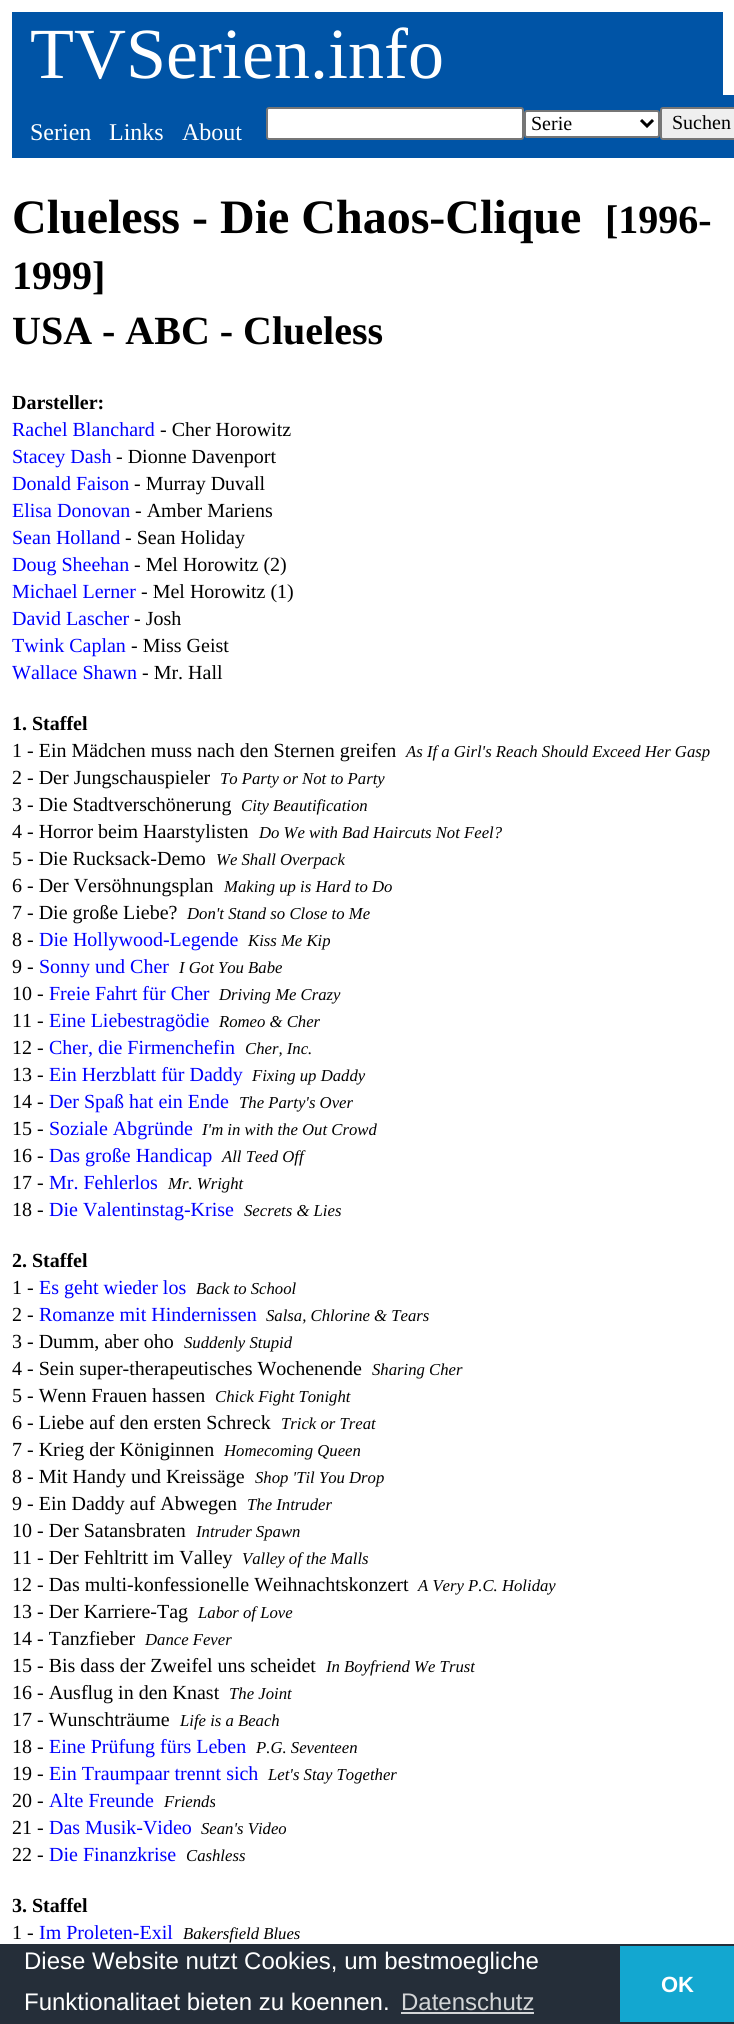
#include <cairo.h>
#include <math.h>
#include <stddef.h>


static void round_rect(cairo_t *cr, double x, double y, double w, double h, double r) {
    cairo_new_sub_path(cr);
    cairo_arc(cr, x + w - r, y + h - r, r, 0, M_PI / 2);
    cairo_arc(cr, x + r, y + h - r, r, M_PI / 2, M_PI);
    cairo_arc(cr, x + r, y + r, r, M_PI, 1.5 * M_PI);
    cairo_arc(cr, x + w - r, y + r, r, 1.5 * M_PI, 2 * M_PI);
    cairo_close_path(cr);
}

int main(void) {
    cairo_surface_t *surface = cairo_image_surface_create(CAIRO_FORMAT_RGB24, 734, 2024);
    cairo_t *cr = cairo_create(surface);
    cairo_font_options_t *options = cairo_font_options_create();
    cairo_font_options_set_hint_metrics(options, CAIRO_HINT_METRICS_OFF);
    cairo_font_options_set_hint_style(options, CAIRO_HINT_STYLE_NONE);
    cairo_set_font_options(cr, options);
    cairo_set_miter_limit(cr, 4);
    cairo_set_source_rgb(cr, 1, 1, 1);
    cairo_paint(cr);
    cairo_set_source_rgb(cr, 0, 0.329, 0.651);
    cairo_rectangle(cr, 12, 12, 711, 146);
    cairo_fill(cr);
    cairo_select_font_face(cr, "Liberation Serif", CAIRO_FONT_SLANT_NORMAL, CAIRO_FONT_WEIGHT_NORMAL);
    cairo_set_font_size(cr, 72);
    cairo_set_source_rgb(cr, 1, 1, 1);
    cairo_move_to(cr, 30, 78);
    cairo_show_text(cr, "TVSerien.info");
    cairo_set_font_size(cr, 24);
    cairo_move_to(cr, 30, 140);
    cairo_show_text(cr, "Serien");
    cairo_move_to(cr, 109, 140);
    cairo_show_text(cr, "Links");
    cairo_move_to(cr, 182, 140);
    cairo_show_text(cr, "About");
    cairo_set_source_rgb(cr, 0, 0.329, 0.651);
    cairo_rectangle(cr, 723, 95, 11, 63);
    cairo_fill(cr);
    cairo_set_source_rgb(cr, 1, 1, 1);
    round_rect(cr, 267, 108, 256, 31, 2);
    cairo_fill_preserve(cr);
    cairo_set_source_rgb(cr, 0.463, 0.463, 0.463);
    cairo_stroke(cr);
    cairo_set_source_rgb(cr, 1, 1, 1);
    round_rect(cr, 525, 111, 134, 26, 2);
    cairo_fill_preserve(cr);
    cairo_set_source_rgb(cr, 0.463, 0.463, 0.463);
    cairo_stroke(cr);
    cairo_new_path(cr);
    cairo_move_to(cr, 641, 120);
    cairo_line_to(cr, 647, 126);
    cairo_line_to(cr, 653, 120);
    cairo_set_source_rgb(cr, 0, 0, 0);
    cairo_set_line_width(cr, 3);
    cairo_stroke(cr);
    cairo_set_font_size(cr, 20);
    cairo_move_to(cr, 531, 130);
    cairo_show_text(cr, "Serie");
    cairo_set_source_rgb(cr, 0.937, 0.937, 0.937);
    round_rect(cr, 661, 108, 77, 31, 2);
    cairo_fill_preserve(cr);
    cairo_set_source_rgb(cr, 0.463, 0.463, 0.463);
    cairo_set_line_width(cr, 2);
    cairo_stroke(cr);
    cairo_set_source_rgb(cr, 0, 0, 0);
    cairo_move_to(cr, 672, 129);
    cairo_show_text(cr, "Suchen");
    cairo_select_font_face(cr, "Liberation Serif", CAIRO_FONT_SLANT_NORMAL, CAIRO_FONT_WEIGHT_BOLD);
    cairo_set_font_size(cr, 48);
    cairo_move_to(cr, 12, 233);
    cairo_show_text(cr, "Clueless - Die Chaos-Clique");
    cairo_set_font_size(cr, 40);
    cairo_move_to(cr, 605, 233);
    cairo_show_text(cr, "[1996-");
    cairo_move_to(cr, 12, 289);
    cairo_show_text(cr, "1999]");
    cairo_move_to(cr, 12, 344);
    cairo_show_text(cr, "USA - ABC - Clueless");
    cairo_set_font_size(cr, 20);
    cairo_move_to(cr, 12, 409);
    cairo_show_text(cr, "Darsteller:");
    cairo_select_font_face(cr, "Liberation Serif", CAIRO_FONT_SLANT_NORMAL, CAIRO_FONT_WEIGHT_NORMAL);
    cairo_set_source_rgb(cr, 0, 0, 1);
    cairo_move_to(cr, 12, 436);
    cairo_show_text(cr, "Rachel Blanchard");
    cairo_set_source_rgb(cr, 0, 0, 0);
    cairo_move_to(cr, 160, 436);
    cairo_show_text(cr, "- Cher Horowitz");
    cairo_set_source_rgb(cr, 0, 0, 1);
    cairo_move_to(cr, 12, 463);
    cairo_show_text(cr, "Stacey Dash");
    cairo_set_source_rgb(cr, 0, 0, 0);
    cairo_move_to(cr, 116, 463);
    cairo_show_text(cr, "- Dionne Davenport");
    cairo_set_source_rgb(cr, 0, 0, 1);
    cairo_move_to(cr, 12, 490);
    cairo_show_text(cr, "Donald Faison");
    cairo_set_source_rgb(cr, 0, 0, 0);
    cairo_move_to(cr, 134, 490);
    cairo_show_text(cr, "- Murray Duvall");
    cairo_set_source_rgb(cr, 0, 0, 1);
    cairo_move_to(cr, 12, 517);
    cairo_show_text(cr, "Elisa Donovan");
    cairo_set_source_rgb(cr, 0, 0, 0);
    cairo_move_to(cr, 135, 517);
    cairo_show_text(cr, "- Amber Mariens");
    cairo_set_source_rgb(cr, 0, 0, 1);
    cairo_move_to(cr, 12, 544);
    cairo_show_text(cr, "Sean Holland");
    cairo_set_source_rgb(cr, 0, 0, 0);
    cairo_move_to(cr, 125, 544);
    cairo_show_text(cr, "- Sean Holiday");
    cairo_set_source_rgb(cr, 0, 0, 1);
    cairo_move_to(cr, 12, 571);
    cairo_show_text(cr, "Doug Sheehan");
    cairo_set_source_rgb(cr, 0, 0, 0);
    cairo_move_to(cr, 134, 571);
    cairo_show_text(cr, "- Mel Horowitz (2)");
    cairo_set_source_rgb(cr, 0, 0, 1);
    cairo_move_to(cr, 12, 598);
    cairo_show_text(cr, "Michael Lerner");
    cairo_set_source_rgb(cr, 0, 0, 0);
    cairo_move_to(cr, 141, 598);
    cairo_show_text(cr, "- Mel Horowitz (1)");
    cairo_set_source_rgb(cr, 0, 0, 1);
    cairo_move_to(cr, 12, 625);
    cairo_show_text(cr, "David Lascher");
    cairo_set_source_rgb(cr, 0, 0, 0);
    cairo_move_to(cr, 134, 625);
    cairo_show_text(cr, "- Josh");
    cairo_set_source_rgb(cr, 0, 0, 1);
    cairo_move_to(cr, 12, 652);
    cairo_show_text(cr, "Twink Caplan");
    cairo_set_source_rgb(cr, 0, 0, 0);
    cairo_move_to(cr, 131, 652);
    cairo_show_text(cr, "- Miss Geist");
    cairo_set_source_rgb(cr, 0, 0, 1);
    cairo_move_to(cr, 12, 679);
    cairo_show_text(cr, "Wallace Shawn");
    cairo_set_source_rgb(cr, 0, 0, 0);
    cairo_move_to(cr, 142, 679);
    cairo_show_text(cr, "- Mr. Hall");
    cairo_select_font_face(cr, "Liberation Serif", CAIRO_FONT_SLANT_NORMAL, CAIRO_FONT_WEIGHT_BOLD);
    cairo_move_to(cr, 12, 730);
    cairo_show_text(cr, "1. Staffel");
    cairo_select_font_face(cr, "Liberation Serif", CAIRO_FONT_SLANT_NORMAL, CAIRO_FONT_WEIGHT_NORMAL);
    cairo_move_to(cr, 12, 757);
    cairo_show_text(cr, "1 - Ein Mädchen muss nach den Sternen greifen");
    cairo_select_font_face(cr, "Liberation Serif", CAIRO_FONT_SLANT_ITALIC, CAIRO_FONT_WEIGHT_NORMAL);
    cairo_set_font_size(cr, 16.7);
    cairo_move_to(cr, 406, 757);
    cairo_show_text(cr, "As If a Girl's Reach Should Exceed Her Gasp");
    cairo_select_font_face(cr, "Liberation Serif", CAIRO_FONT_SLANT_NORMAL, CAIRO_FONT_WEIGHT_NORMAL);
    cairo_set_font_size(cr, 20);
    cairo_move_to(cr, 12, 784);
    cairo_show_text(cr, "2 - Der Jungschauspieler");
    cairo_select_font_face(cr, "Liberation Serif", CAIRO_FONT_SLANT_ITALIC, CAIRO_FONT_WEIGHT_NORMAL);
    cairo_set_font_size(cr, 16.7);
    cairo_move_to(cr, 220, 784);
    cairo_show_text(cr, "To Party or Not to Party");
    cairo_select_font_face(cr, "Liberation Serif", CAIRO_FONT_SLANT_NORMAL, CAIRO_FONT_WEIGHT_NORMAL);
    cairo_set_font_size(cr, 20);
    cairo_move_to(cr, 12, 811);
    cairo_show_text(cr, "3 - Die Stadtverschönerung");
    cairo_select_font_face(cr, "Liberation Serif", CAIRO_FONT_SLANT_ITALIC, CAIRO_FONT_WEIGHT_NORMAL);
    cairo_set_font_size(cr, 16.7);
    cairo_move_to(cr, 241, 811);
    cairo_show_text(cr, "City Beautification");
    cairo_select_font_face(cr, "Liberation Serif", CAIRO_FONT_SLANT_NORMAL, CAIRO_FONT_WEIGHT_NORMAL);
    cairo_set_font_size(cr, 20);
    cairo_move_to(cr, 12, 838);
    cairo_show_text(cr, "4 - Horror beim Haarstylisten");
    cairo_select_font_face(cr, "Liberation Serif", CAIRO_FONT_SLANT_ITALIC, CAIRO_FONT_WEIGHT_NORMAL);
    cairo_set_font_size(cr, 16.7);
    cairo_move_to(cr, 259, 838);
    cairo_show_text(cr, "Do We with Bad Haircuts Not Feel?");
    cairo_select_font_face(cr, "Liberation Serif", CAIRO_FONT_SLANT_NORMAL, CAIRO_FONT_WEIGHT_NORMAL);
    cairo_set_font_size(cr, 20);
    cairo_move_to(cr, 12, 865);
    cairo_show_text(cr, "5 - Die Rucksack-Demo");
    cairo_select_font_face(cr, "Liberation Serif", CAIRO_FONT_SLANT_ITALIC, CAIRO_FONT_WEIGHT_NORMAL);
    cairo_set_font_size(cr, 16.7);
    cairo_move_to(cr, 216, 865);
    cairo_show_text(cr, "We Shall Overpack");
    cairo_select_font_face(cr, "Liberation Serif", CAIRO_FONT_SLANT_NORMAL, CAIRO_FONT_WEIGHT_NORMAL);
    cairo_set_font_size(cr, 20);
    cairo_move_to(cr, 12, 892);
    cairo_show_text(cr, "6 - Der Versöhnungsplan");
    cairo_select_font_face(cr, "Liberation Serif", CAIRO_FONT_SLANT_ITALIC, CAIRO_FONT_WEIGHT_NORMAL);
    cairo_set_font_size(cr, 16.7);
    cairo_move_to(cr, 224, 892);
    cairo_show_text(cr, "Making up is Hard to Do");
    cairo_select_font_face(cr, "Liberation Serif", CAIRO_FONT_SLANT_NORMAL, CAIRO_FONT_WEIGHT_NORMAL);
    cairo_set_font_size(cr, 20);
    cairo_move_to(cr, 12, 919);
    cairo_show_text(cr, "7 - Die große Liebe?");
    cairo_select_font_face(cr, "Liberation Serif", CAIRO_FONT_SLANT_ITALIC, CAIRO_FONT_WEIGHT_NORMAL);
    cairo_set_font_size(cr, 16.7);
    cairo_move_to(cr, 187, 919);
    cairo_show_text(cr, "Don't Stand so Close to Me");
    cairo_select_font_face(cr, "Liberation Serif", CAIRO_FONT_SLANT_NORMAL, CAIRO_FONT_WEIGHT_NORMAL);
    cairo_set_font_size(cr, 20);
    cairo_move_to(cr, 12, 946);
    cairo_show_text(cr, "8 -");
    cairo_set_source_rgb(cr, 0, 0, 1);
    cairo_move_to(cr, 39, 946);
    cairo_show_text(cr, "Die Hollywood-Legende");
    cairo_select_font_face(cr, "Liberation Serif", CAIRO_FONT_SLANT_ITALIC, CAIRO_FONT_WEIGHT_NORMAL);
    cairo_set_font_size(cr, 16.7);
    cairo_set_source_rgb(cr, 0, 0, 0);
    cairo_move_to(cr, 248, 946);
    cairo_show_text(cr, "Kiss Me Kip");
    cairo_select_font_face(cr, "Liberation Serif", CAIRO_FONT_SLANT_NORMAL, CAIRO_FONT_WEIGHT_NORMAL);
    cairo_set_font_size(cr, 20);
    cairo_move_to(cr, 12, 973);
    cairo_show_text(cr, "9 -");
    cairo_set_source_rgb(cr, 0, 0, 1);
    cairo_move_to(cr, 39, 973);
    cairo_show_text(cr, "Sonny und Cher");
    cairo_select_font_face(cr, "Liberation Serif", CAIRO_FONT_SLANT_ITALIC, CAIRO_FONT_WEIGHT_NORMAL);
    cairo_set_font_size(cr, 16.7);
    cairo_set_source_rgb(cr, 0, 0, 0);
    cairo_move_to(cr, 179, 973);
    cairo_show_text(cr, "I Got You Babe");
    cairo_select_font_face(cr, "Liberation Serif", CAIRO_FONT_SLANT_NORMAL, CAIRO_FONT_WEIGHT_NORMAL);
    cairo_set_font_size(cr, 20);
    cairo_move_to(cr, 12, 1000);
    cairo_show_text(cr, "10 -");
    cairo_set_source_rgb(cr, 0, 0, 1);
    cairo_move_to(cr, 49, 1000);
    cairo_show_text(cr, "Freie Fahrt für Cher");
    cairo_select_font_face(cr, "Liberation Serif", CAIRO_FONT_SLANT_ITALIC, CAIRO_FONT_WEIGHT_NORMAL);
    cairo_set_font_size(cr, 16.7);
    cairo_set_source_rgb(cr, 0, 0, 0);
    cairo_move_to(cr, 219, 1000);
    cairo_show_text(cr, "Driving Me Crazy");
    cairo_select_font_face(cr, "Liberation Serif", CAIRO_FONT_SLANT_NORMAL, CAIRO_FONT_WEIGHT_NORMAL);
    cairo_set_font_size(cr, 20);
    cairo_move_to(cr, 12, 1027);
    cairo_show_text(cr, "11 -");
    cairo_set_source_rgb(cr, 0, 0, 1);
    cairo_move_to(cr, 49, 1027);
    cairo_show_text(cr, "Eine Liebestragödie");
    cairo_select_font_face(cr, "Liberation Serif", CAIRO_FONT_SLANT_ITALIC, CAIRO_FONT_WEIGHT_NORMAL);
    cairo_set_font_size(cr, 16.7);
    cairo_set_source_rgb(cr, 0, 0, 0);
    cairo_move_to(cr, 219, 1027);
    cairo_show_text(cr, "Romeo & Cher");
    cairo_select_font_face(cr, "Liberation Serif", CAIRO_FONT_SLANT_NORMAL, CAIRO_FONT_WEIGHT_NORMAL);
    cairo_set_font_size(cr, 20);
    cairo_move_to(cr, 12, 1054);
    cairo_show_text(cr, "12 -");
    cairo_set_source_rgb(cr, 0, 0, 1);
    cairo_move_to(cr, 49, 1054);
    cairo_show_text(cr, "Cher, die Firmenchefin");
    cairo_select_font_face(cr, "Liberation Serif", CAIRO_FONT_SLANT_ITALIC, CAIRO_FONT_WEIGHT_NORMAL);
    cairo_set_font_size(cr, 16.7);
    cairo_set_source_rgb(cr, 0, 0, 0);
    cairo_move_to(cr, 245, 1054);
    cairo_show_text(cr, "Cher, Inc.");
    cairo_select_font_face(cr, "Liberation Serif", CAIRO_FONT_SLANT_NORMAL, CAIRO_FONT_WEIGHT_NORMAL);
    cairo_set_font_size(cr, 20);
    cairo_move_to(cr, 12, 1081);
    cairo_show_text(cr, "13 -");
    cairo_set_source_rgb(cr, 0, 0, 1);
    cairo_move_to(cr, 49, 1081);
    cairo_show_text(cr, "Ein Herzblatt für Daddy");
    cairo_select_font_face(cr, "Liberation Serif", CAIRO_FONT_SLANT_ITALIC, CAIRO_FONT_WEIGHT_NORMAL);
    cairo_set_font_size(cr, 16.7);
    cairo_set_source_rgb(cr, 0, 0, 0);
    cairo_move_to(cr, 252, 1081);
    cairo_show_text(cr, "Fixing up Daddy");
    cairo_select_font_face(cr, "Liberation Serif", CAIRO_FONT_SLANT_NORMAL, CAIRO_FONT_WEIGHT_NORMAL);
    cairo_set_font_size(cr, 20);
    cairo_move_to(cr, 12, 1108);
    cairo_show_text(cr, "14 -");
    cairo_set_source_rgb(cr, 0, 0, 1);
    cairo_move_to(cr, 49, 1108);
    cairo_show_text(cr, "Der Spaß hat ein Ende");
    cairo_select_font_face(cr, "Liberation Serif", CAIRO_FONT_SLANT_ITALIC, CAIRO_FONT_WEIGHT_NORMAL);
    cairo_set_font_size(cr, 16.7);
    cairo_set_source_rgb(cr, 0, 0, 0);
    cairo_move_to(cr, 239, 1108);
    cairo_show_text(cr, "The Party's Over");
    cairo_select_font_face(cr, "Liberation Serif", CAIRO_FONT_SLANT_NORMAL, CAIRO_FONT_WEIGHT_NORMAL);
    cairo_set_font_size(cr, 20);
    cairo_move_to(cr, 12, 1135);
    cairo_show_text(cr, "15 -");
    cairo_set_source_rgb(cr, 0, 0, 1);
    cairo_move_to(cr, 49, 1135);
    cairo_show_text(cr, "Soziale Abgründe");
    cairo_select_font_face(cr, "Liberation Serif", CAIRO_FONT_SLANT_ITALIC, CAIRO_FONT_WEIGHT_NORMAL);
    cairo_set_font_size(cr, 16.7);
    cairo_set_source_rgb(cr, 0, 0, 0);
    cairo_move_to(cr, 202, 1135);
    cairo_show_text(cr, "I'm in with the Out Crowd");
    cairo_select_font_face(cr, "Liberation Serif", CAIRO_FONT_SLANT_NORMAL, CAIRO_FONT_WEIGHT_NORMAL);
    cairo_set_font_size(cr, 20);
    cairo_move_to(cr, 12, 1162);
    cairo_show_text(cr, "16 -");
    cairo_set_source_rgb(cr, 0, 0, 1);
    cairo_move_to(cr, 49, 1162);
    cairo_show_text(cr, "Das große Handicap");
    cairo_select_font_face(cr, "Liberation Serif", CAIRO_FONT_SLANT_ITALIC, CAIRO_FONT_WEIGHT_NORMAL);
    cairo_set_font_size(cr, 16.7);
    cairo_set_source_rgb(cr, 0, 0, 0);
    cairo_move_to(cr, 222, 1162);
    cairo_show_text(cr, "All Teed Off");
    cairo_select_font_face(cr, "Liberation Serif", CAIRO_FONT_SLANT_NORMAL, CAIRO_FONT_WEIGHT_NORMAL);
    cairo_set_font_size(cr, 20);
    cairo_move_to(cr, 12, 1189);
    cairo_show_text(cr, "17 -");
    cairo_set_source_rgb(cr, 0, 0, 1);
    cairo_move_to(cr, 49, 1189);
    cairo_show_text(cr, "Mr. Fehlerlos");
    cairo_select_font_face(cr, "Liberation Serif", CAIRO_FONT_SLANT_ITALIC, CAIRO_FONT_WEIGHT_NORMAL);
    cairo_set_font_size(cr, 16.7);
    cairo_set_source_rgb(cr, 0, 0, 0);
    cairo_move_to(cr, 168, 1189);
    cairo_show_text(cr, "Mr. Wright");
    cairo_select_font_face(cr, "Liberation Serif", CAIRO_FONT_SLANT_NORMAL, CAIRO_FONT_WEIGHT_NORMAL);
    cairo_set_font_size(cr, 20);
    cairo_move_to(cr, 12, 1216);
    cairo_show_text(cr, "18 -");
    cairo_set_source_rgb(cr, 0, 0, 1);
    cairo_move_to(cr, 49, 1216);
    cairo_show_text(cr, "Die Valentinstag-Krise");
    cairo_select_font_face(cr, "Liberation Serif", CAIRO_FONT_SLANT_ITALIC, CAIRO_FONT_WEIGHT_NORMAL);
    cairo_set_font_size(cr, 16.7);
    cairo_set_source_rgb(cr, 0, 0, 0);
    cairo_move_to(cr, 244, 1216);
    cairo_show_text(cr, "Secrets & Lies");
    cairo_select_font_face(cr, "Liberation Serif", CAIRO_FONT_SLANT_NORMAL, CAIRO_FONT_WEIGHT_BOLD);
    cairo_set_font_size(cr, 20);
    cairo_move_to(cr, 12, 1267);
    cairo_show_text(cr, "2. Staffel");
    cairo_select_font_face(cr, "Liberation Serif", CAIRO_FONT_SLANT_NORMAL, CAIRO_FONT_WEIGHT_NORMAL);
    cairo_move_to(cr, 12, 1294);
    cairo_show_text(cr, "1 -");
    cairo_set_source_rgb(cr, 0, 0, 1);
    cairo_move_to(cr, 39, 1294);
    cairo_show_text(cr, "Es geht wieder los");
    cairo_select_font_face(cr, "Liberation Serif", CAIRO_FONT_SLANT_ITALIC, CAIRO_FONT_WEIGHT_NORMAL);
    cairo_set_font_size(cr, 16.7);
    cairo_set_source_rgb(cr, 0, 0, 0);
    cairo_move_to(cr, 196, 1294);
    cairo_show_text(cr, "Back to School");
    cairo_select_font_face(cr, "Liberation Serif", CAIRO_FONT_SLANT_NORMAL, CAIRO_FONT_WEIGHT_NORMAL);
    cairo_set_font_size(cr, 20);
    cairo_move_to(cr, 12, 1321);
    cairo_show_text(cr, "2 -");
    cairo_set_source_rgb(cr, 0, 0, 1);
    cairo_move_to(cr, 39, 1321);
    cairo_show_text(cr, "Romanze mit Hindernissen");
    cairo_select_font_face(cr, "Liberation Serif", CAIRO_FONT_SLANT_ITALIC, CAIRO_FONT_WEIGHT_NORMAL);
    cairo_set_font_size(cr, 16.7);
    cairo_set_source_rgb(cr, 0, 0, 0);
    cairo_move_to(cr, 266, 1321);
    cairo_show_text(cr, "Salsa, Chlorine & Tears");
    cairo_select_font_face(cr, "Liberation Serif", CAIRO_FONT_SLANT_NORMAL, CAIRO_FONT_WEIGHT_NORMAL);
    cairo_set_font_size(cr, 20);
    cairo_move_to(cr, 12, 1348);
    cairo_show_text(cr, "3 - Dumm, aber oho");
    cairo_select_font_face(cr, "Liberation Serif", CAIRO_FONT_SLANT_ITALIC, CAIRO_FONT_WEIGHT_NORMAL);
    cairo_set_font_size(cr, 16.7);
    cairo_move_to(cr, 184, 1348);
    cairo_show_text(cr, "Suddenly Stupid");
    cairo_select_font_face(cr, "Liberation Serif", CAIRO_FONT_SLANT_NORMAL, CAIRO_FONT_WEIGHT_NORMAL);
    cairo_set_font_size(cr, 20);
    cairo_move_to(cr, 12, 1375);
    cairo_show_text(cr, "4 - Sein super-therapeutisches Wochenende");
    cairo_select_font_face(cr, "Liberation Serif", CAIRO_FONT_SLANT_ITALIC, CAIRO_FONT_WEIGHT_NORMAL);
    cairo_set_font_size(cr, 16.7);
    cairo_move_to(cr, 372, 1375);
    cairo_show_text(cr, "Sharing Cher");
    cairo_select_font_face(cr, "Liberation Serif", CAIRO_FONT_SLANT_NORMAL, CAIRO_FONT_WEIGHT_NORMAL);
    cairo_set_font_size(cr, 20);
    cairo_move_to(cr, 12, 1402);
    cairo_show_text(cr, "5 - Wenn Frauen hassen");
    cairo_select_font_face(cr, "Liberation Serif", CAIRO_FONT_SLANT_ITALIC, CAIRO_FONT_WEIGHT_NORMAL);
    cairo_set_font_size(cr, 16.7);
    cairo_move_to(cr, 215, 1402);
    cairo_show_text(cr, "Chick Fight Tonight");
    cairo_select_font_face(cr, "Liberation Serif", CAIRO_FONT_SLANT_NORMAL, CAIRO_FONT_WEIGHT_NORMAL);
    cairo_set_font_size(cr, 20);
    cairo_move_to(cr, 12, 1429);
    cairo_show_text(cr, "6 - Liebe auf den ersten Schreck");
    cairo_select_font_face(cr, "Liberation Serif", CAIRO_FONT_SLANT_ITALIC, CAIRO_FONT_WEIGHT_NORMAL);
    cairo_set_font_size(cr, 16.7);
    cairo_move_to(cr, 281, 1429);
    cairo_show_text(cr, "Trick or Treat");
    cairo_select_font_face(cr, "Liberation Serif", CAIRO_FONT_SLANT_NORMAL, CAIRO_FONT_WEIGHT_NORMAL);
    cairo_set_font_size(cr, 20);
    cairo_move_to(cr, 12, 1456);
    cairo_show_text(cr, "7 - Krieg der Königinnen");
    cairo_select_font_face(cr, "Liberation Serif", CAIRO_FONT_SLANT_ITALIC, CAIRO_FONT_WEIGHT_NORMAL);
    cairo_set_font_size(cr, 16.7);
    cairo_move_to(cr, 224, 1456);
    cairo_show_text(cr, "Homecoming Queen");
    cairo_select_font_face(cr, "Liberation Serif", CAIRO_FONT_SLANT_NORMAL, CAIRO_FONT_WEIGHT_NORMAL);
    cairo_set_font_size(cr, 20);
    cairo_move_to(cr, 12, 1483);
    cairo_show_text(cr, "8 - Mit Handy und Kreissäge");
    cairo_select_font_face(cr, "Liberation Serif", CAIRO_FONT_SLANT_ITALIC, CAIRO_FONT_WEIGHT_NORMAL);
    cairo_set_font_size(cr, 16.7);
    cairo_move_to(cr, 255, 1483);
    cairo_show_text(cr, "Shop 'Til You Drop");
    cairo_select_font_face(cr, "Liberation Serif", CAIRO_FONT_SLANT_NORMAL, CAIRO_FONT_WEIGHT_NORMAL);
    cairo_set_font_size(cr, 20);
    cairo_move_to(cr, 12, 1510);
    cairo_show_text(cr, "9 - Ein Daddy auf Abwegen");
    cairo_select_font_face(cr, "Liberation Serif", CAIRO_FONT_SLANT_ITALIC, CAIRO_FONT_WEIGHT_NORMAL);
    cairo_set_font_size(cr, 16.7);
    cairo_move_to(cr, 247, 1510);
    cairo_show_text(cr, "The Intruder");
    cairo_select_font_face(cr, "Liberation Serif", CAIRO_FONT_SLANT_NORMAL, CAIRO_FONT_WEIGHT_NORMAL);
    cairo_set_font_size(cr, 20);
    cairo_move_to(cr, 12, 1537);
    cairo_show_text(cr, "10 - Der Satansbraten");
    cairo_select_font_face(cr, "Liberation Serif", CAIRO_FONT_SLANT_ITALIC, CAIRO_FONT_WEIGHT_NORMAL);
    cairo_set_font_size(cr, 16.7);
    cairo_move_to(cr, 196, 1537);
    cairo_show_text(cr, "Intruder Spawn");
    cairo_select_font_face(cr, "Liberation Serif", CAIRO_FONT_SLANT_NORMAL, CAIRO_FONT_WEIGHT_NORMAL);
    cairo_set_font_size(cr, 20);
    cairo_move_to(cr, 12, 1564);
    cairo_show_text(cr, "11 - Der Fehltritt im Valley");
    cairo_select_font_face(cr, "Liberation Serif", CAIRO_FONT_SLANT_ITALIC, CAIRO_FONT_WEIGHT_NORMAL);
    cairo_set_font_size(cr, 16.7);
    cairo_move_to(cr, 242, 1564);
    cairo_show_text(cr, "Valley of the Malls");
    cairo_select_font_face(cr, "Liberation Serif", CAIRO_FONT_SLANT_NORMAL, CAIRO_FONT_WEIGHT_NORMAL);
    cairo_set_font_size(cr, 20);
    cairo_move_to(cr, 12, 1591);
    cairo_show_text(cr, "12 - Das multi-konfessionelle Weihnachtskonzert");
    cairo_select_font_face(cr, "Liberation Serif", CAIRO_FONT_SLANT_ITALIC, CAIRO_FONT_WEIGHT_NORMAL);
    cairo_set_font_size(cr, 16.7);
    cairo_move_to(cr, 418, 1591);
    cairo_show_text(cr, "A Very P.C. Holiday");
    cairo_select_font_face(cr, "Liberation Serif", CAIRO_FONT_SLANT_NORMAL, CAIRO_FONT_WEIGHT_NORMAL);
    cairo_set_font_size(cr, 20);
    cairo_move_to(cr, 12, 1618);
    cairo_show_text(cr, "13 - Der Karriere-Tag");
    cairo_select_font_face(cr, "Liberation Serif", CAIRO_FONT_SLANT_ITALIC, CAIRO_FONT_WEIGHT_NORMAL);
    cairo_set_font_size(cr, 16.7);
    cairo_move_to(cr, 198, 1618);
    cairo_show_text(cr, "Labor of Love");
    cairo_select_font_face(cr, "Liberation Serif", CAIRO_FONT_SLANT_NORMAL, CAIRO_FONT_WEIGHT_NORMAL);
    cairo_set_font_size(cr, 20);
    cairo_move_to(cr, 12, 1645);
    cairo_show_text(cr, "14 - Tanzfieber");
    cairo_select_font_face(cr, "Liberation Serif", CAIRO_FONT_SLANT_ITALIC, CAIRO_FONT_WEIGHT_NORMAL);
    cairo_set_font_size(cr, 16.7);
    cairo_move_to(cr, 145, 1645);
    cairo_show_text(cr, "Dance Fever");
    cairo_select_font_face(cr, "Liberation Serif", CAIRO_FONT_SLANT_NORMAL, CAIRO_FONT_WEIGHT_NORMAL);
    cairo_set_font_size(cr, 20);
    cairo_move_to(cr, 12, 1672);
    cairo_show_text(cr, "15 - Bis dass der Zweifel uns scheidet");
    cairo_select_font_face(cr, "Liberation Serif", CAIRO_FONT_SLANT_ITALIC, CAIRO_FONT_WEIGHT_NORMAL);
    cairo_set_font_size(cr, 16.7);
    cairo_move_to(cr, 326, 1672);
    cairo_show_text(cr, "In Boyfriend We Trust");
    cairo_select_font_face(cr, "Liberation Serif", CAIRO_FONT_SLANT_NORMAL, CAIRO_FONT_WEIGHT_NORMAL);
    cairo_set_font_size(cr, 20);
    cairo_move_to(cr, 12, 1699);
    cairo_show_text(cr, "16 - Ausflug in den Knast");
    cairo_select_font_face(cr, "Liberation Serif", CAIRO_FONT_SLANT_ITALIC, CAIRO_FONT_WEIGHT_NORMAL);
    cairo_set_font_size(cr, 16.7);
    cairo_move_to(cr, 229, 1699);
    cairo_show_text(cr, "The Joint");
    cairo_select_font_face(cr, "Liberation Serif", CAIRO_FONT_SLANT_NORMAL, CAIRO_FONT_WEIGHT_NORMAL);
    cairo_set_font_size(cr, 20);
    cairo_move_to(cr, 12, 1726);
    cairo_show_text(cr, "17 - Wunschträume");
    cairo_select_font_face(cr, "Liberation Serif", CAIRO_FONT_SLANT_ITALIC, CAIRO_FONT_WEIGHT_NORMAL);
    cairo_set_font_size(cr, 16.7);
    cairo_move_to(cr, 180, 1726);
    cairo_show_text(cr, "Life is a Beach");
    cairo_select_font_face(cr, "Liberation Serif", CAIRO_FONT_SLANT_NORMAL, CAIRO_FONT_WEIGHT_NORMAL);
    cairo_set_font_size(cr, 20);
    cairo_move_to(cr, 12, 1753);
    cairo_show_text(cr, "18 -");
    cairo_set_source_rgb(cr, 0, 0, 1);
    cairo_move_to(cr, 49, 1753);
    cairo_show_text(cr, "Eine Prüfung fürs Leben");
    cairo_select_font_face(cr, "Liberation Serif", CAIRO_FONT_SLANT_ITALIC, CAIRO_FONT_WEIGHT_NORMAL);
    cairo_set_font_size(cr, 16.7);
    cairo_set_source_rgb(cr, 0, 0, 0);
    cairo_move_to(cr, 256, 1753);
    cairo_show_text(cr, "P.G. Seventeen");
    cairo_select_font_face(cr, "Liberation Serif", CAIRO_FONT_SLANT_NORMAL, CAIRO_FONT_WEIGHT_NORMAL);
    cairo_set_font_size(cr, 20);
    cairo_move_to(cr, 12, 1780);
    cairo_show_text(cr, "19 -");
    cairo_set_source_rgb(cr, 0, 0, 1);
    cairo_move_to(cr, 49, 1780);
    cairo_show_text(cr, "Ein Traumpaar trennt sich");
    cairo_select_font_face(cr, "Liberation Serif", CAIRO_FONT_SLANT_ITALIC, CAIRO_FONT_WEIGHT_NORMAL);
    cairo_set_font_size(cr, 16.7);
    cairo_set_source_rgb(cr, 0, 0, 0);
    cairo_move_to(cr, 268, 1780);
    cairo_show_text(cr, "Let's Stay Together");
    cairo_select_font_face(cr, "Liberation Serif", CAIRO_FONT_SLANT_NORMAL, CAIRO_FONT_WEIGHT_NORMAL);
    cairo_set_font_size(cr, 20);
    cairo_move_to(cr, 12, 1807);
    cairo_show_text(cr, "20 -");
    cairo_set_source_rgb(cr, 0, 0, 1);
    cairo_move_to(cr, 49, 1807);
    cairo_show_text(cr, "Alte Freunde");
    cairo_select_font_face(cr, "Liberation Serif", CAIRO_FONT_SLANT_ITALIC, CAIRO_FONT_WEIGHT_NORMAL);
    cairo_set_font_size(cr, 16.7);
    cairo_set_source_rgb(cr, 0, 0, 0);
    cairo_move_to(cr, 164, 1807);
    cairo_show_text(cr, "Friends");
    cairo_select_font_face(cr, "Liberation Serif", CAIRO_FONT_SLANT_NORMAL, CAIRO_FONT_WEIGHT_NORMAL);
    cairo_set_font_size(cr, 20);
    cairo_move_to(cr, 12, 1834);
    cairo_show_text(cr, "21 -");
    cairo_set_source_rgb(cr, 0, 0, 1);
    cairo_move_to(cr, 49, 1834);
    cairo_show_text(cr, "Das Musik-Video");
    cairo_select_font_face(cr, "Liberation Serif", CAIRO_FONT_SLANT_ITALIC, CAIRO_FONT_WEIGHT_NORMAL);
    cairo_set_font_size(cr, 16.7);
    cairo_set_source_rgb(cr, 0, 0, 0);
    cairo_move_to(cr, 201, 1834);
    cairo_show_text(cr, "Sean's Video");
    cairo_select_font_face(cr, "Liberation Serif", CAIRO_FONT_SLANT_NORMAL, CAIRO_FONT_WEIGHT_NORMAL);
    cairo_set_font_size(cr, 20);
    cairo_move_to(cr, 12, 1861);
    cairo_show_text(cr, "22 -");
    cairo_set_source_rgb(cr, 0, 0, 1);
    cairo_move_to(cr, 49, 1861);
    cairo_show_text(cr, "Die Finanzkrise");
    cairo_select_font_face(cr, "Liberation Serif", CAIRO_FONT_SLANT_ITALIC, CAIRO_FONT_WEIGHT_NORMAL);
    cairo_set_font_size(cr, 16.7);
    cairo_set_source_rgb(cr, 0, 0, 0);
    cairo_move_to(cr, 186, 1861);
    cairo_show_text(cr, "Cashless");
    cairo_select_font_face(cr, "Liberation Serif", CAIRO_FONT_SLANT_NORMAL, CAIRO_FONT_WEIGHT_BOLD);
    cairo_set_font_size(cr, 20);
    cairo_move_to(cr, 12, 1912);
    cairo_show_text(cr, "3. Staffel");
    cairo_select_font_face(cr, "Liberation Serif", CAIRO_FONT_SLANT_NORMAL, CAIRO_FONT_WEIGHT_NORMAL);
    cairo_move_to(cr, 12, 1939);
    cairo_show_text(cr, "1 -");
    cairo_set_source_rgb(cr, 0, 0, 1);
    cairo_move_to(cr, 39, 1939);
    cairo_show_text(cr, "Im Proleten-Exil");
    cairo_select_font_face(cr, "Liberation Serif", CAIRO_FONT_SLANT_ITALIC, CAIRO_FONT_WEIGHT_NORMAL);
    cairo_set_font_size(cr, 16.7);
    cairo_set_source_rgb(cr, 0, 0, 0);
    cairo_move_to(cr, 183, 1939);
    cairo_show_text(cr, "Bakersfield Blues");
    cairo_set_source_rgb(cr, 0.145, 0.18, 0.224);
    cairo_rectangle(cr, 0, 1944, 734, 80);
    cairo_fill(cr);
    cairo_select_font_face(cr, "Liberation Sans", CAIRO_FONT_SLANT_NORMAL, CAIRO_FONT_WEIGHT_NORMAL);
    cairo_set_font_size(cr, 24);
    cairo_set_source_rgb(cr, 1, 1, 1);
    cairo_move_to(cr, 24, 1969);
    cairo_show_text(cr, "Diese Website nutzt Cookies, um bestmoegliche");
    cairo_move_to(cr, 24, 2010);
    cairo_show_text(cr, "Funktionalitaet bieten zu koennen.");
    cairo_set_source_rgb(cr, 0.827, 0.835, 0.843);
    cairo_move_to(cr, 401, 2010);
    cairo_show_text(cr, "Datenschutz");
    cairo_rectangle(cr, 401, 2012, 133, 2);
    cairo_fill(cr);
    cairo_set_source_rgb(cr, 0.078, 0.655, 0.816);
    cairo_rectangle(cr, 620, 1946, 114, 76);
    cairo_fill(cr);
    cairo_select_font_face(cr, "Liberation Sans", CAIRO_FONT_SLANT_NORMAL, CAIRO_FONT_WEIGHT_BOLD);
    cairo_set_font_size(cr, 22);
    cairo_set_source_rgb(cr, 1, 1, 1);
    cairo_move_to(cr, 661, 1992);
    cairo_show_text(cr, "OK");
    cairo_surface_write_to_png(surface, "page.png");
    cairo_font_options_destroy(options);
    cairo_destroy(cr);
    cairo_surface_destroy(surface);
    return 0;
}
